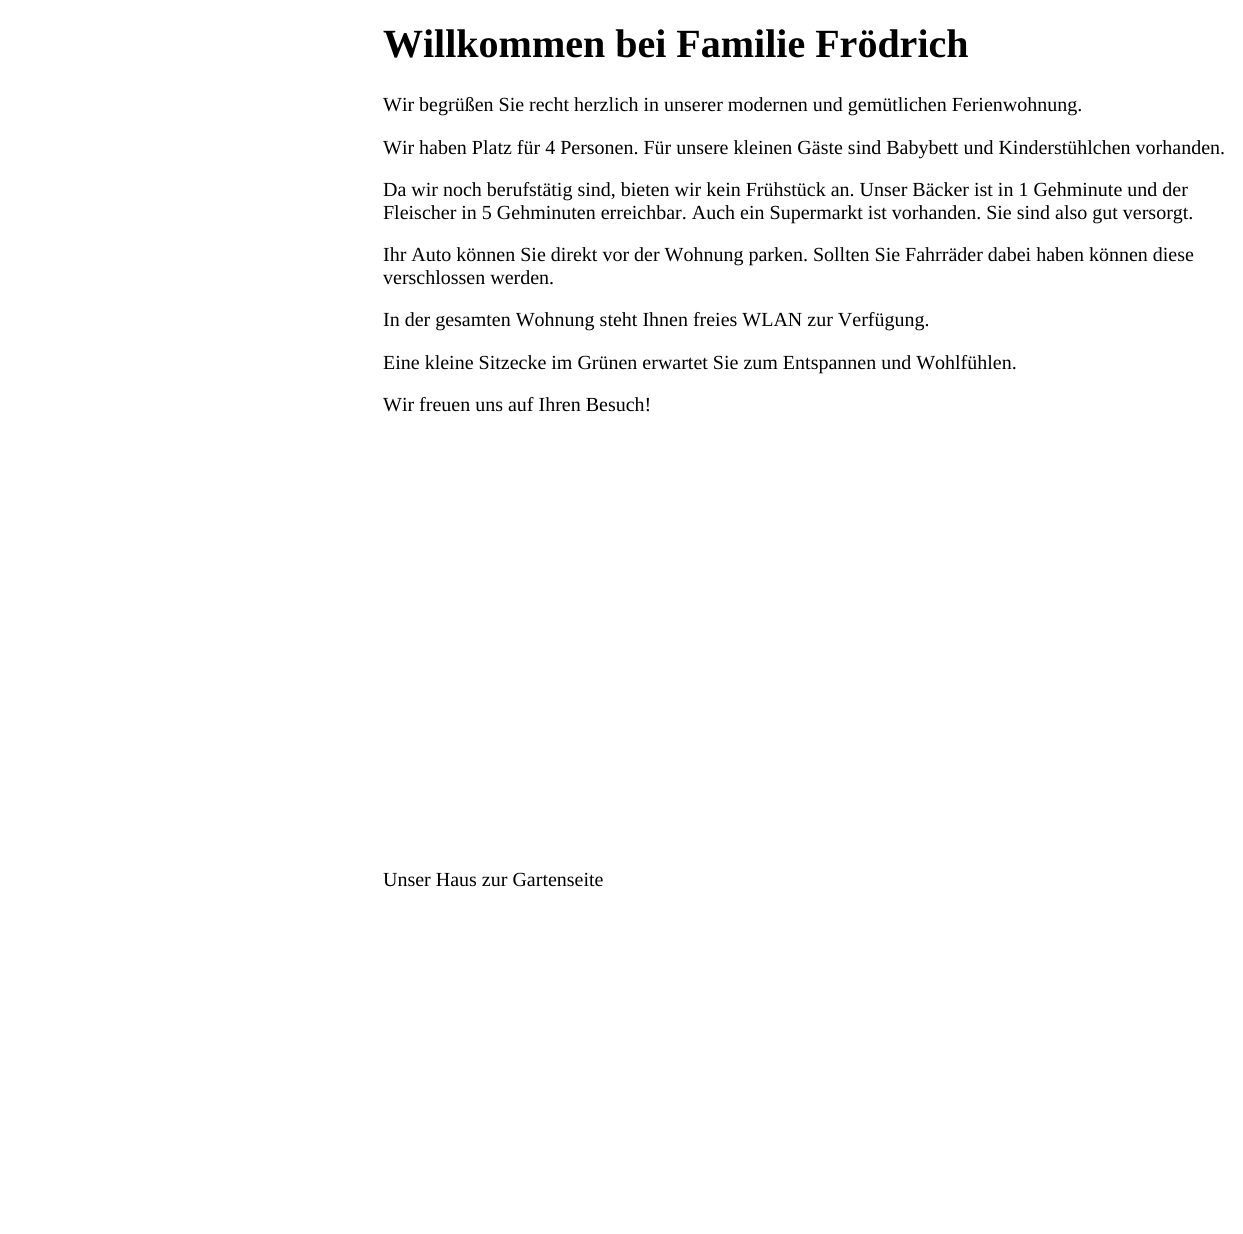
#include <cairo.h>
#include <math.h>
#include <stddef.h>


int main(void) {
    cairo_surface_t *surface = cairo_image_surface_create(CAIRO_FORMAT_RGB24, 1243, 1234);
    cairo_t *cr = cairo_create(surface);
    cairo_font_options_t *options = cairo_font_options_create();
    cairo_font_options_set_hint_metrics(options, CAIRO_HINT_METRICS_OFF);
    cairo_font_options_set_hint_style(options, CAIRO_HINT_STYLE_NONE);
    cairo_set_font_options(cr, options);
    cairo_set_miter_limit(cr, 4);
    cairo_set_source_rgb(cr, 1, 1, 1);
    cairo_paint(cr);
    cairo_select_font_face(cr, "Liberation Serif", CAIRO_FONT_SLANT_NORMAL, CAIRO_FONT_WEIGHT_BOLD);
    cairo_set_font_size(cr, 40);
    cairo_set_source_rgb(cr, 0, 0, 0);
    cairo_move_to(cr, 383, 57);
    cairo_show_text(cr, "Willkommen bei Familie Frödrich");
    cairo_select_font_face(cr, "Liberation Serif", CAIRO_FONT_SLANT_NORMAL, CAIRO_FONT_WEIGHT_NORMAL);
    cairo_set_font_size(cr, 20);
    cairo_move_to(cr, 383, 111);
    cairo_show_text(cr, "Wir begrüßen Sie recht herzlich in unserer modernen und gemütlichen Ferienwohnung.");
    cairo_move_to(cr, 383, 154);
    cairo_show_text(cr, "Wir haben Platz für 4 Personen. Für unsere kleinen Gäste sind Babybett und Kinderstühlchen vorhanden.");
    cairo_move_to(cr, 383, 196);
    cairo_show_text(cr, "Da wir noch berufstätig sind, bieten wir kein Frühstück an. Unser Bäcker ist in 1 Gehminute und der");
    cairo_move_to(cr, 383, 219);
    cairo_show_text(cr, "Fleischer in 5 Gehminuten erreichbar. Auch ein Supermarkt ist vorhanden. Sie sind also gut versorgt.");
    cairo_move_to(cr, 383, 261);
    cairo_show_text(cr, "Ihr Auto können Sie direkt vor der Wohnung parken. Sollten Sie Fahrräder dabei haben können diese");
    cairo_move_to(cr, 383, 284);
    cairo_show_text(cr, "verschlossen werden.");
    cairo_move_to(cr, 383, 326);
    cairo_show_text(cr, "In der gesamten Wohnung steht Ihnen freies WLAN zur Verfügung.");
    cairo_move_to(cr, 383, 369);
    cairo_show_text(cr, "Eine kleine Sitzecke im Grünen erwartet Sie zum Entspannen und Wohlfühlen.");
    cairo_move_to(cr, 383, 411);
    cairo_show_text(cr, "Wir freuen uns auf Ihren Besuch!");
    cairo_move_to(cr, 383, 886);
    cairo_show_text(cr, "Unser Haus zur Gartenseite");
    cairo_surface_write_to_png(surface, "page.png");
    cairo_font_options_destroy(options);
    cairo_destroy(cr);
    cairo_surface_destroy(surface);
    return 0;
}
